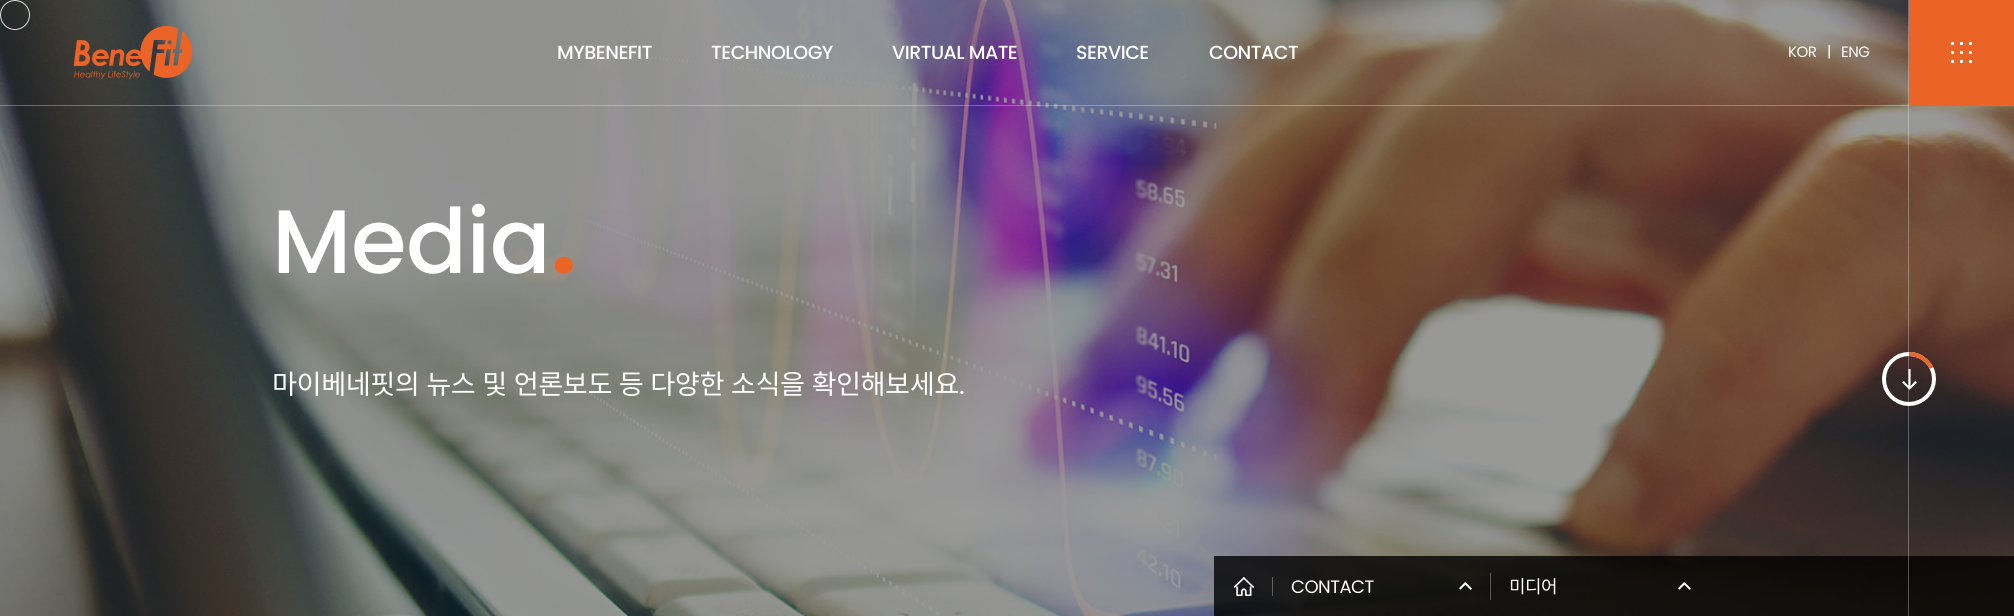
#include <cairo.h>
#include <math.h>
#include <stddef.h>


static void spaced_text(cairo_t *cr, double x, double y, const char *s, double letter, double word) {
    cairo_move_to(cr, x, y);
    while (*s) {
        char ch[5] = {0};
        int n = 0;
        do ch[n++] = *s++; while ((*s & 0xC0) == 0x80);
        cairo_show_text(cr, ch);
        cairo_rel_move_to(cr, letter + word * (*ch == ' '), 0);
    }
}

static void picture(cairo_t *cr, const char *path, double x, double y, double w, double h) {
    cairo_surface_t *image = cairo_image_surface_create_from_png(path);
    cairo_save(cr);
    cairo_set_source_surface(cr, image, x, y);
    cairo_rectangle(cr, x, y, w, h);
    cairo_fill(cr);
    cairo_restore(cr);
    cairo_surface_destroy(image);
}

int main(void) {
    cairo_surface_t *surface = cairo_image_surface_create(CAIRO_FORMAT_RGB24, 2014, 616);
    cairo_t *cr = cairo_create(surface);
    cairo_font_options_t *options = cairo_font_options_create();
    cairo_font_options_set_hint_metrics(options, CAIRO_HINT_METRICS_OFF);
    cairo_font_options_set_hint_style(options, CAIRO_HINT_STYLE_NONE);
    cairo_set_font_options(cr, options);
    cairo_set_miter_limit(cr, 4);
    cairo_set_source_rgb(cr, 1, 1, 1);
    cairo_paint(cr);
    picture(cr, "img3.png", 0, 0, 2014, 616);
    cairo_arc(cr, 15, 15, 14.5, 0, 2 * M_PI);
    cairo_set_source_rgb(cr, 0.867, 0.867, 0.867);
    cairo_set_line_width(cr, 1);
    cairo_stroke(cr);
    cairo_set_source_rgba(cr, 0, 0, 0, 0.8);
    cairo_rectangle(cr, 1214, 556, 800, 60);
    cairo_fill(cr);
    picture(cr, "img7.png", 1902, 369, 15, 21);
    picture(cr, "img8.png", 1882, 352, 54, 54);
    cairo_set_source_rgba(cr, 1, 1, 1, 0.3);
    cairo_rectangle(cr, 1908, 0, 1, 616);
    cairo_fill(cr);
    cairo_rectangle(cr, 0, 105, 1909, 1);
    cairo_fill(cr);
    picture(cr, "img1.png", 73, 26, 120, 53);
    cairo_select_font_face(cr, "Poppins Medium", CAIRO_FONT_SLANT_NORMAL, CAIRO_FONT_WEIGHT_NORMAL);
    cairo_set_font_size(cr, 19);
    cairo_set_source_rgb(cr, 1, 1, 1);
    spaced_text(cr, 557, 59, "MYBENEFIT", -0.5, 0);
    spaced_text(cr, 711, 59, "TECHNOLOGY", -0.5, 0);
    spaced_text(cr, 892, 59, "VIRTUAL MATE", -0.5, 0);
    spaced_text(cr, 1076, 59, "SERVICE", -0.5, 0);
    spaced_text(cr, 1209, 59, "CONTACT", -0.5, 0);
    cairo_select_font_face(cr, "Poppins", CAIRO_FONT_SLANT_NORMAL, CAIRO_FONT_WEIGHT_NORMAL);
    cairo_set_font_size(cr, 15);
    spaced_text(cr, 1788, 57, "KOR", -0.5, 0);
    spaced_text(cr, 1827, 57, "|", -0.5, 0);
    spaced_text(cr, 1841, 57, "ENG", -0.5, 0);
    cairo_set_source_rgb(cr, 0.925, 0.388, 0.157);
    cairo_rectangle(cr, 1909, 0, 105, 106);
    cairo_fill(cr);
    picture(cr, "img2.png", 1951, 42, 21, 21);
    cairo_select_font_face(cr, "Poppins Medium", CAIRO_FONT_SLANT_NORMAL, CAIRO_FONT_WEIGHT_NORMAL);
    cairo_set_font_size(cr, 90);
    cairo_set_source_rgb(cr, 1, 1, 1);
    spaced_text(cr, 272, 273, "Media", -0.5, 0);
    cairo_select_font_face(cr, "Poppins", CAIRO_FONT_SLANT_NORMAL, CAIRO_FONT_WEIGHT_BOLD);
    cairo_set_source_rgb(cr, 0.925, 0.388, 0.157);
    spaced_text(cr, 551, 273, ".", -0.5, 0);
    cairo_select_font_face(cr, "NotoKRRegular", CAIRO_FONT_SLANT_NORMAL, CAIRO_FONT_WEIGHT_NORMAL);
    cairo_set_font_size(cr, 27.25);
    cairo_set_source_rgb(cr, 1, 1, 1);
    spaced_text(cr, 272, 394, "마이베네핏의 뉴스 및 언론보도 등 다양한 소식을 확인해보세요", -0.5, 1.25);
    cairo_select_font_face(cr, "Poppins", CAIRO_FONT_SLANT_NORMAL, CAIRO_FONT_WEIGHT_NORMAL);
    spaced_text(cr, 959, 394, ".", -0.5, 0);
    cairo_set_source_rgb(cr, 0.373, 0.373, 0.376);
    cairo_rectangle(cr, 1272, 577, 1, 19);
    cairo_fill(cr);
    picture(cr, "img4.png", 1234, 577, 20, 19);
    cairo_set_source_rgba(cr, 1, 1, 1, 0.3);
    cairo_rectangle(cr, 1490, 573, 1, 27);
    cairo_fill(cr);
    cairo_set_font_size(cr, 18);
    cairo_set_source_rgb(cr, 1, 1, 1);
    spaced_text(cr, 1291, 593, "CONTACT", -0.5, 0);
    picture(cr, "img5.png", 1459, 582, 13, 8);
    cairo_select_font_face(cr, "NotoKRRegular", CAIRO_FONT_SLANT_NORMAL, CAIRO_FONT_WEIGHT_NORMAL);
    spaced_text(cr, 1509, 593, "미디어", -0.5, 0);
    picture(cr, "img6.png", 1678, 582, 13, 8);
    picture(cr, "img9.png", 1909, 352, 25, 17);
    cairo_surface_write_to_png(surface, "page.png");
    cairo_font_options_destroy(options);
    cairo_destroy(cr);
    cairo_surface_destroy(surface);
    return 0;
}
